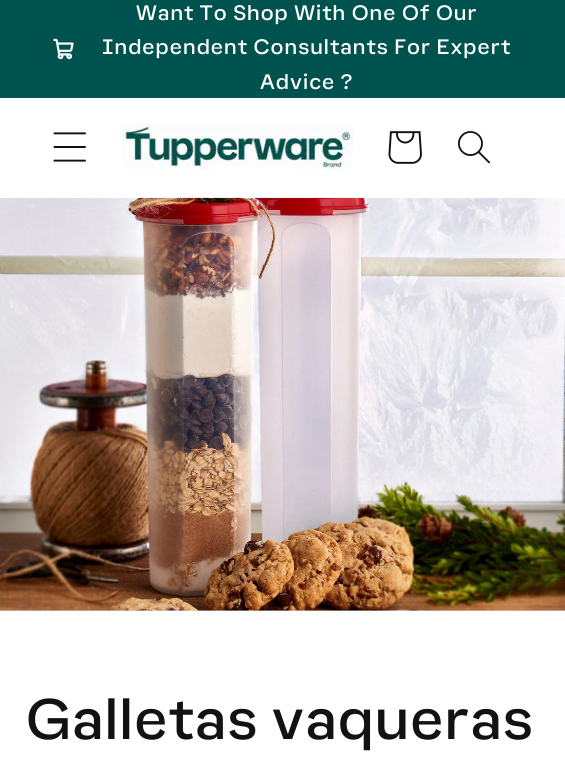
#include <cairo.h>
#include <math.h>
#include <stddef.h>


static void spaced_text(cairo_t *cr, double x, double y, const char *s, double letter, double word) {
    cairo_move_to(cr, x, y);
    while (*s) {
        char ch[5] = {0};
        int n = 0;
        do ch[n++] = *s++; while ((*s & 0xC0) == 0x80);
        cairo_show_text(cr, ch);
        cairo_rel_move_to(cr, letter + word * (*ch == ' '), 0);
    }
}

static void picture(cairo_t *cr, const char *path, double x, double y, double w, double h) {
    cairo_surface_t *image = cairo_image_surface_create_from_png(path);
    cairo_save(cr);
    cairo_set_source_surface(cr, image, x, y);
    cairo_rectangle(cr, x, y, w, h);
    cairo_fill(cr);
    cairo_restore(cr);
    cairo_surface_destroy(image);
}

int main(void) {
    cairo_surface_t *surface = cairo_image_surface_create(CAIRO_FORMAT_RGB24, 565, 769);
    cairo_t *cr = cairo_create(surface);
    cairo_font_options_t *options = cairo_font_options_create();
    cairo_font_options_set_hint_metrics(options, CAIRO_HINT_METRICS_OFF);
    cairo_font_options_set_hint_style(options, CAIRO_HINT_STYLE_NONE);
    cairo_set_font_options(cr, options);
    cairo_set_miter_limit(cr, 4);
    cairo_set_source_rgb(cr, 1, 1, 1);
    cairo_paint(cr);
    cairo_set_source_rgb(cr, 0, 0.322, 0.31);
    cairo_rectangle(cr, 0, 0, 565, 98);
    cairo_fill(cr);
    picture(cr, "img1.png", 53, 38, 21, 22);
    cairo_select_font_face(cr, "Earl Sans", CAIRO_FONT_SLANT_NORMAL, CAIRO_FONT_WEIGHT_NORMAL);
    cairo_set_font_size(cr, 19.25);
    cairo_set_source_rgb(cr, 1, 1, 1);
    spaced_text(cr, 136, 20, "Want To Shop With One Of Our", 1.05, 0);
    spaced_text(cr, 102, 54, "Independent Consultants For Expert", 1.05, 0);
    spaced_text(cr, 260, 89, "Advice ?", 1.05, 0);
    picture(cr, "img2.png", 53, 132, 33, 30);
    picture(cr, "img3.png", 122, 124, 232, 46);
    picture(cr, "img4.png", 388, 131, 34, 33);
    picture(cr, "img5.png", 458, 131, 32, 33);
    cairo_set_source_rgb(cr, 0.91, 0.91, 0.91);
    cairo_rectangle(cr, 0, 610, 565, 1);
    cairo_fill(cr);
    picture(cr, "img6.png", 0, 197, 565, 414);
    cairo_set_font_size(cr, 52.5);
    cairo_set_source_rgb(cr, 0.071, 0.071, 0.071);
    spaced_text(cr, 26, 739, "Galletas vaqueras", 1.05, 0);
    cairo_surface_write_to_png(surface, "page.png");
    cairo_font_options_destroy(options);
    cairo_destroy(cr);
    cairo_surface_destroy(surface);
    return 0;
}
